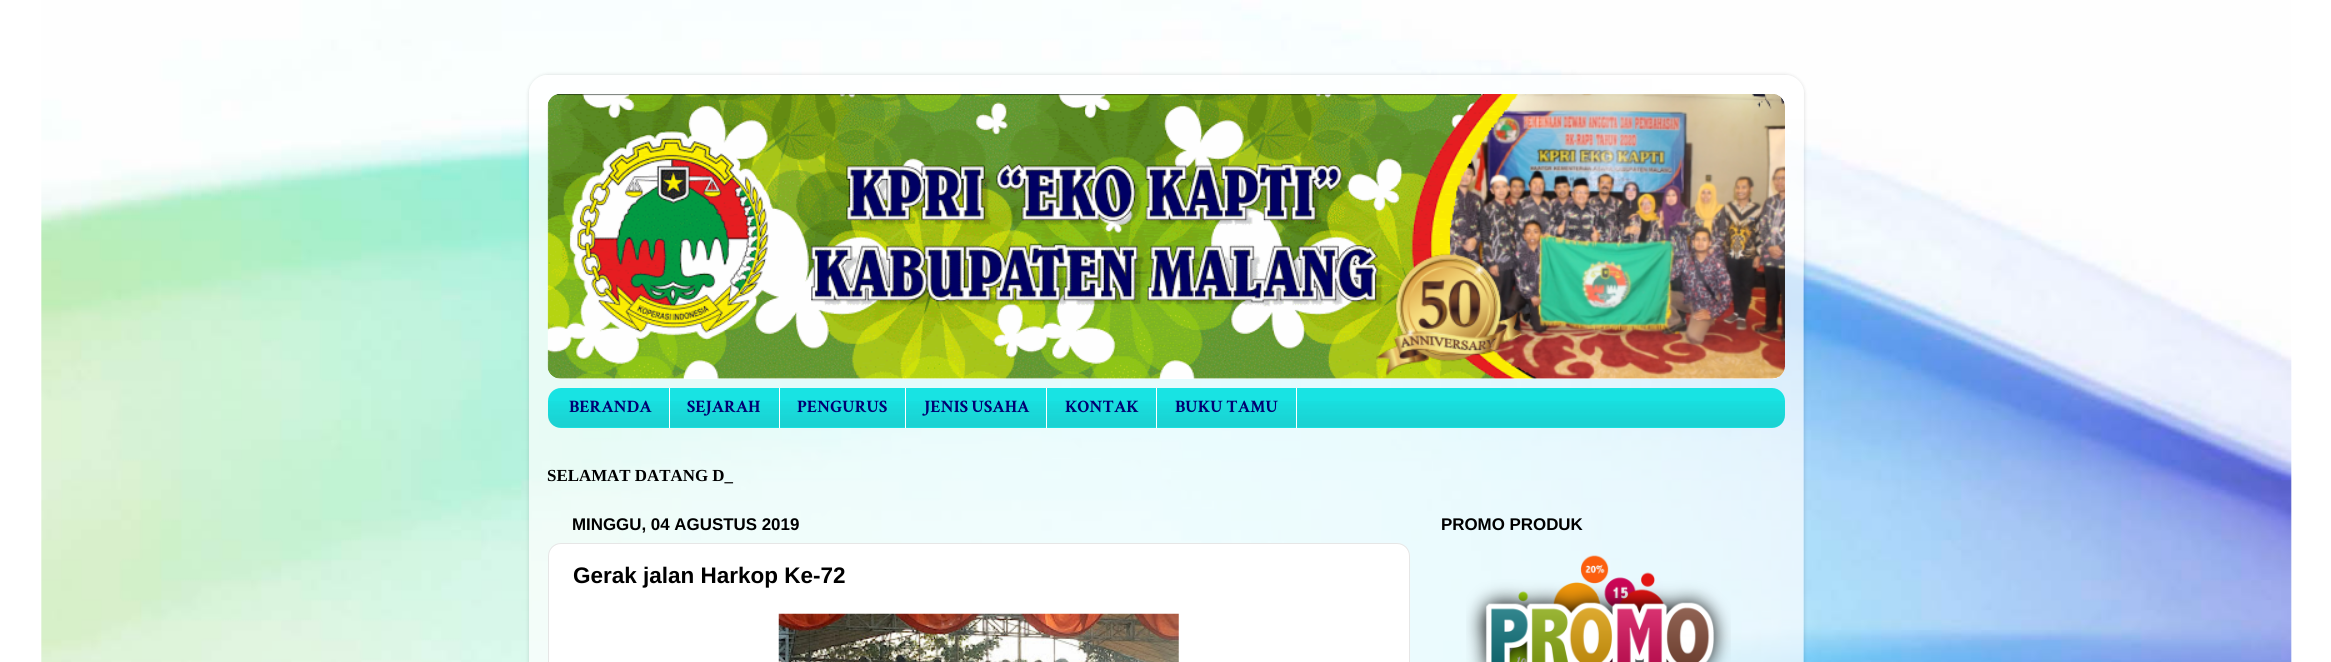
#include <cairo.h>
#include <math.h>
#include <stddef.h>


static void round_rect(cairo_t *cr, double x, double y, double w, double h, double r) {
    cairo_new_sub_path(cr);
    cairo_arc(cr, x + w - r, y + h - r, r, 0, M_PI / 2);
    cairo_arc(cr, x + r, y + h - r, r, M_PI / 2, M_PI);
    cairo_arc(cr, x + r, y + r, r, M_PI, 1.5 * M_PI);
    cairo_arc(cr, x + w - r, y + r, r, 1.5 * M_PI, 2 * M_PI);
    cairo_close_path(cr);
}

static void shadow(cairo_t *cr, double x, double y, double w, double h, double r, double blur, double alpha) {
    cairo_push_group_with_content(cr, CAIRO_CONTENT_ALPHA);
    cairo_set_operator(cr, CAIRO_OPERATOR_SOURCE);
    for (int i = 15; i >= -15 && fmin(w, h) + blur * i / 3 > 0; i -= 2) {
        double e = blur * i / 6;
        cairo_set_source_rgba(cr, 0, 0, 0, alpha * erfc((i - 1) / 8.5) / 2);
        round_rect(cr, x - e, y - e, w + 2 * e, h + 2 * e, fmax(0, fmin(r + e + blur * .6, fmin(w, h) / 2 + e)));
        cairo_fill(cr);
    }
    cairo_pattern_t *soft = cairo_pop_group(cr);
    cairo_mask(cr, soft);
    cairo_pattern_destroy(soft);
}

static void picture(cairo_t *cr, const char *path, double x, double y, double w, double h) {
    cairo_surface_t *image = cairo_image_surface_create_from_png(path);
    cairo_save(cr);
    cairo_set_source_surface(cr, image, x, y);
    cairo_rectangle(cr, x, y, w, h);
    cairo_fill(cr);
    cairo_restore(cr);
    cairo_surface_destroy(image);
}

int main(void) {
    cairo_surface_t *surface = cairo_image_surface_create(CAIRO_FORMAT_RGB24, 2331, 662);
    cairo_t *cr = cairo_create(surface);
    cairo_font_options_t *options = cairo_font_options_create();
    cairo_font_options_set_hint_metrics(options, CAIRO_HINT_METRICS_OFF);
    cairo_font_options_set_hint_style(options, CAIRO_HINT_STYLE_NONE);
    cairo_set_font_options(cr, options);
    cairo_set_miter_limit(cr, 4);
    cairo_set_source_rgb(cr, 1, 1, 1);
    cairo_paint(cr);
    picture(cr, "img1.png", 41, 0, 2251, 662);
    cairo_save(cr);
    cairo_set_fill_rule(cr, CAIRO_FILL_RULE_EVEN_ODD);
    cairo_new_path(cr);
    cairo_move_to(cr, 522, 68);
    cairo_line_to(cr, 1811, 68);
    cairo_line_to(cr, 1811, 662);
    cairo_line_to(cr, 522, 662);
    cairo_close_path(cr);
    cairo_move_to(cr, 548, 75);
    cairo_line_to(cr, 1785, 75);
    cairo_curve_to(cr, 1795.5, 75, 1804, 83.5, 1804, 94);
    cairo_line_to(cr, 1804, 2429);
    cairo_curve_to(cr, 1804, 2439.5, 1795.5, 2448, 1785, 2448);
    cairo_line_to(cr, 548, 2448);
    cairo_curve_to(cr, 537.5, 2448, 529, 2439.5, 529, 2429);
    cairo_line_to(cr, 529, 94);
    cairo_curve_to(cr, 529, 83.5, 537.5, 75, 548, 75);
    cairo_close_path(cr);
    cairo_clip(cr);
    cairo_set_source_rgb(cr, 0, 0, 0);
    shadow(cr, 529, 75, 1275, 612, 19, 2, 0.15);
    cairo_restore(cr);
    picture(cr, "img2.png", 528, 75, 1276, 587);
    cairo_set_source_rgb(cr, 1, 1, 1);
    round_rect(cr, 548, 94, 1237, 285, 13);
    cairo_fill(cr);
    picture(cr, "img3.png", 547, 94, 1238, 285);
    cairo_set_source_rgb(cr, 0.094, 0.89, 0.89);
    round_rect(cr, 548, 388, 1237, 40, 13);
    cairo_fill(cr);
    picture(cr, "img4.png", 548, 401, 1237, 27);
    cairo_set_source_rgb(cr, 1, 1, 1);
    cairo_rectangle(cr, 669, 388, 1, 40);
    cairo_fill(cr);
    cairo_select_font_face(cr, "Crimson Text", CAIRO_FONT_SLANT_NORMAL, CAIRO_FONT_WEIGHT_BOLD);
    cairo_set_font_size(cr, 17.5);
    cairo_set_source_rgb(cr, 0, 0, 0.443);
    cairo_move_to(cr, 569, 412);
    cairo_show_text(cr, "BERANDA");
    cairo_set_source_rgb(cr, 1, 1, 1);
    cairo_rectangle(cr, 779, 388, 1, 40);
    cairo_fill(cr);
    cairo_set_source_rgb(cr, 0, 0, 0.443);
    cairo_move_to(cr, 687, 412);
    cairo_show_text(cr, "SEJARAH");
    cairo_set_source_rgb(cr, 1, 1, 1);
    cairo_rectangle(cr, 905, 388, 1, 40);
    cairo_fill(cr);
    cairo_set_source_rgb(cr, 0, 0, 0.443);
    cairo_move_to(cr, 797, 412);
    cairo_show_text(cr, "PENGURUS");
    cairo_set_source_rgb(cr, 1, 1, 1);
    cairo_rectangle(cr, 1046, 388, 1, 40);
    cairo_fill(cr);
    cairo_set_source_rgb(cr, 0, 0, 0.443);
    cairo_move_to(cr, 924, 412);
    cairo_show_text(cr, "JENIS USAHA");
    cairo_set_source_rgb(cr, 1, 1, 1);
    cairo_rectangle(cr, 1156, 388, 1, 40);
    cairo_fill(cr);
    cairo_set_source_rgb(cr, 0, 0, 0.443);
    cairo_move_to(cr, 1065, 412);
    cairo_show_text(cr, "KONTAK");
    cairo_set_source_rgb(cr, 1, 1, 1);
    cairo_rectangle(cr, 1296, 388, 1, 40);
    cairo_fill(cr);
    cairo_set_source_rgb(cr, 0, 0, 0.443);
    cairo_move_to(cr, 1175, 412);
    cairo_show_text(cr, "BUKU TAMU");
    cairo_select_font_face(cr, "Liberation Serif", CAIRO_FONT_SLANT_NORMAL, CAIRO_FONT_WEIGHT_BOLD);
    cairo_set_font_size(cr, 16.9);
    cairo_set_source_rgb(cr, 0, 0, 0);
    cairo_move_to(cr, 547, 481);
    cairo_show_text(cr, "SELAMAT DATANG D_");
    cairo_select_font_face(cr, "Liberation Sans", CAIRO_FONT_SLANT_NORMAL, CAIRO_FONT_WEIGHT_BOLD);
    cairo_move_to(cr, 572, 530);
    cairo_show_text(cr, "MINGGU, 04 AGUSTUS 2019");
    cairo_set_source_rgb(cr, 1, 1, 1);
    round_rect(cr, 548.5, 543.5, 861, 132, 12.5);
    cairo_fill_preserve(cr);
    cairo_set_source_rgb(cr, 0.902, 0.902, 0.902);
    cairo_set_line_width(cr, 1);
    cairo_stroke(cr);
    cairo_set_font_size(cr, 22.5);
    cairo_set_source_rgb(cr, 0, 0, 0);
    cairo_move_to(cr, 573, 583);
    cairo_show_text(cr, "Gerak jalan Harkop Ke-72");
    picture(cr, "img5.png", 778, 613, 401, 49);
    cairo_set_font_size(cr, 16.9);
    cairo_move_to(cr, 1441, 530);
    cairo_show_text(cr, "PROMO PRODUK");
    picture(cr, "img6.png", 1466, 555, 265, 107);
    cairo_surface_write_to_png(surface, "page.png");
    cairo_font_options_destroy(options);
    cairo_destroy(cr);
    cairo_surface_destroy(surface);
    return 0;
}
